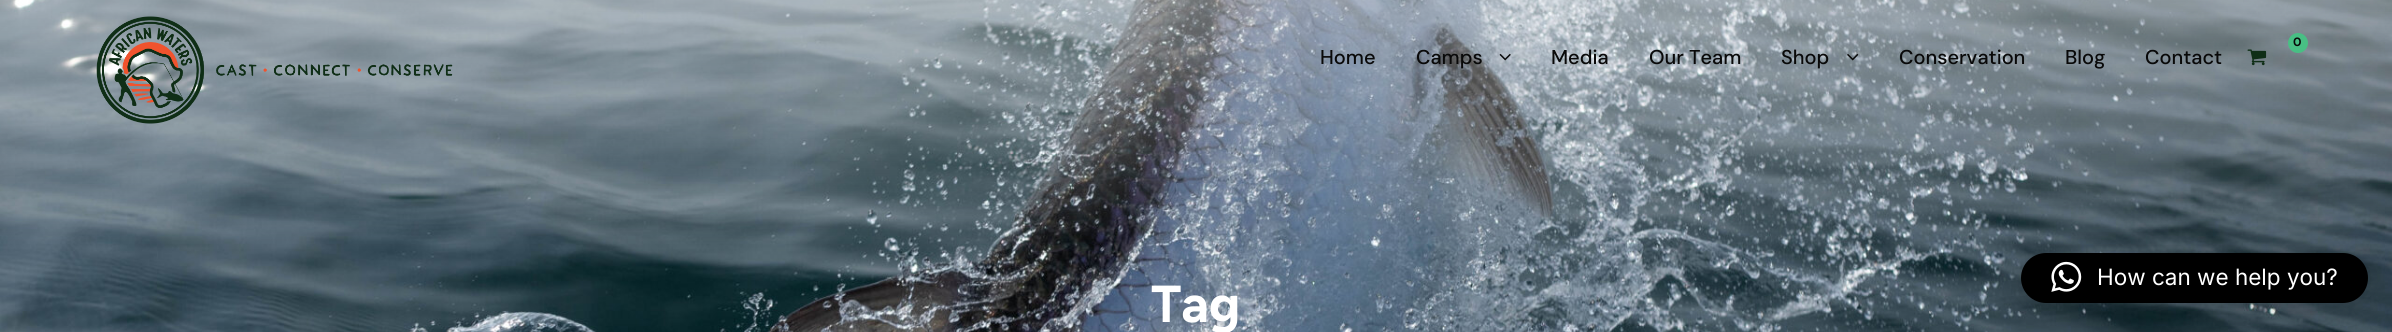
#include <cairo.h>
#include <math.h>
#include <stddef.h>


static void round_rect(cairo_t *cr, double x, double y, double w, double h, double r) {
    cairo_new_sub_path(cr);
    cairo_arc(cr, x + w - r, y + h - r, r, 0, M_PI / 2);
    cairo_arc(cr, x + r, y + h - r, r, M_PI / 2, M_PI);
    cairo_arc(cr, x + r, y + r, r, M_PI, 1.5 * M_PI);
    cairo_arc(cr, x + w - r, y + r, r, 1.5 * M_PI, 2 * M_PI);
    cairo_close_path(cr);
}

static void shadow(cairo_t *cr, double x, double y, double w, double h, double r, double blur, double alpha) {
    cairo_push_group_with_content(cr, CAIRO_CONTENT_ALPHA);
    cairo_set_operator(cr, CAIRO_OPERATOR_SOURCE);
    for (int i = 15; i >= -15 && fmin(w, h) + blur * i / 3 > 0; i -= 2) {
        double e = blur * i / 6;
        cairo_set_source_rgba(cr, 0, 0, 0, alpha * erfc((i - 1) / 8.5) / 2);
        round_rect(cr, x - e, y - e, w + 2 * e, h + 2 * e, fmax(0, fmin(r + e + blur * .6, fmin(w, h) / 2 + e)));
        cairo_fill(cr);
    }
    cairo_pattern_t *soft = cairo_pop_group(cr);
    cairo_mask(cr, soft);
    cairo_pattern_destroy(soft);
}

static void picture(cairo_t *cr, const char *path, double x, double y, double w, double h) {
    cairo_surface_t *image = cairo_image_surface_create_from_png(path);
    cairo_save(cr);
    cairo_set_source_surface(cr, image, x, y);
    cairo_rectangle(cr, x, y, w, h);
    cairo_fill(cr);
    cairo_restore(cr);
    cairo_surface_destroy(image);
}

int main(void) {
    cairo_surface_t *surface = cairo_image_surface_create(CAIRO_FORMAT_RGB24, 2392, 332);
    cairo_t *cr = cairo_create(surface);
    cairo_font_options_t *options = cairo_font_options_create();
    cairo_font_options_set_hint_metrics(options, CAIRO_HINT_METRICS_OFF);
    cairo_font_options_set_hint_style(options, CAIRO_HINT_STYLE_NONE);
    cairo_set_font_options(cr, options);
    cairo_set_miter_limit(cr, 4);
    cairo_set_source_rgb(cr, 1, 1, 1);
    cairo_paint(cr);
    picture(cr, "img5.png", 0, 0, 2392, 332);
    picture(cr, "img1.png", 96, 16, 357, 108);
    cairo_set_source_rgb(cr, 0.282, 0.749, 0.518);
    cairo_arc(cr, 2298, 43, 10, 0, 2 * M_PI);
    cairo_fill(cr);
    cairo_select_font_face(cr, "DM Sans", CAIRO_FONT_SLANT_NORMAL, CAIRO_FONT_WEIGHT_BOLD);
    cairo_set_font_size(cr, 12);
    cairo_set_source_rgb(cr, 0.039, 0.039, 0.039);
    cairo_move_to(cr, 2293, 46);
    cairo_show_text(cr, "0");
    picture(cr, "img2.png", 2247, 49, 20, 17);
    cairo_select_font_face(cr, "DM Sans Medium", CAIRO_FONT_SLANT_NORMAL, CAIRO_FONT_WEIGHT_NORMAL);
    cairo_set_font_size(cr, 20);
    cairo_move_to(cr, 1320, 64);
    cairo_show_text(cr, "Home");
    cairo_move_to(cr, 1416, 64);
    cairo_show_text(cr, "Camps");
    picture(cr, "img3.png", 1499, 53, 12, 8);
    cairo_move_to(cr, 1551, 64);
    cairo_show_text(cr, "Media");
    cairo_move_to(cr, 1649, 64);
    cairo_show_text(cr, "Our Team");
    cairo_move_to(cr, 1781, 64);
    cairo_show_text(cr, "Shop");
    picture(cr, "img4.png", 1847, 54, 12, 7);
    cairo_move_to(cr, 1899, 64);
    cairo_show_text(cr, "Conservation");
    cairo_move_to(cr, 2065, 64);
    cairo_show_text(cr, "Blog");
    cairo_move_to(cr, 2145, 64);
    cairo_show_text(cr, "Contact");
    cairo_select_font_face(cr, "Figtree", CAIRO_FONT_SLANT_NORMAL, CAIRO_FONT_WEIGHT_BOLD);
    cairo_set_font_size(cr, 52);
    cairo_set_source_rgb(cr, 1, 1, 1);
    cairo_move_to(cr, 1151, 322);
    cairo_show_text(cr, "Tag");
    cairo_set_source_rgb(cr, 0, 0, 0);
    shadow(cr, 2021, 255, 347, 50, 25, 20, 0.16);
    shadow(cr, 2021, 254, 347, 50, 25, 4, 0.06);
    cairo_set_source_rgb(cr, 0, 0, 0);
    round_rect(cr, 2021, 253, 347, 50, 25);
    cairo_fill(cr);
    picture(cr, "img6.png", 2051, 261, 31, 31);
    cairo_select_font_face(cr, "Inter", CAIRO_FONT_SLANT_NORMAL, CAIRO_FONT_WEIGHT_NORMAL);
    cairo_set_font_size(cr, 22.5);
    cairo_set_source_rgb(cr, 1, 1, 1);
    cairo_move_to(cr, 2097, 285);
    cairo_show_text(cr, "How can we help you?");
    cairo_surface_write_to_png(surface, "page.png");
    cairo_font_options_destroy(options);
    cairo_destroy(cr);
    cairo_surface_destroy(surface);
    return 0;
}
